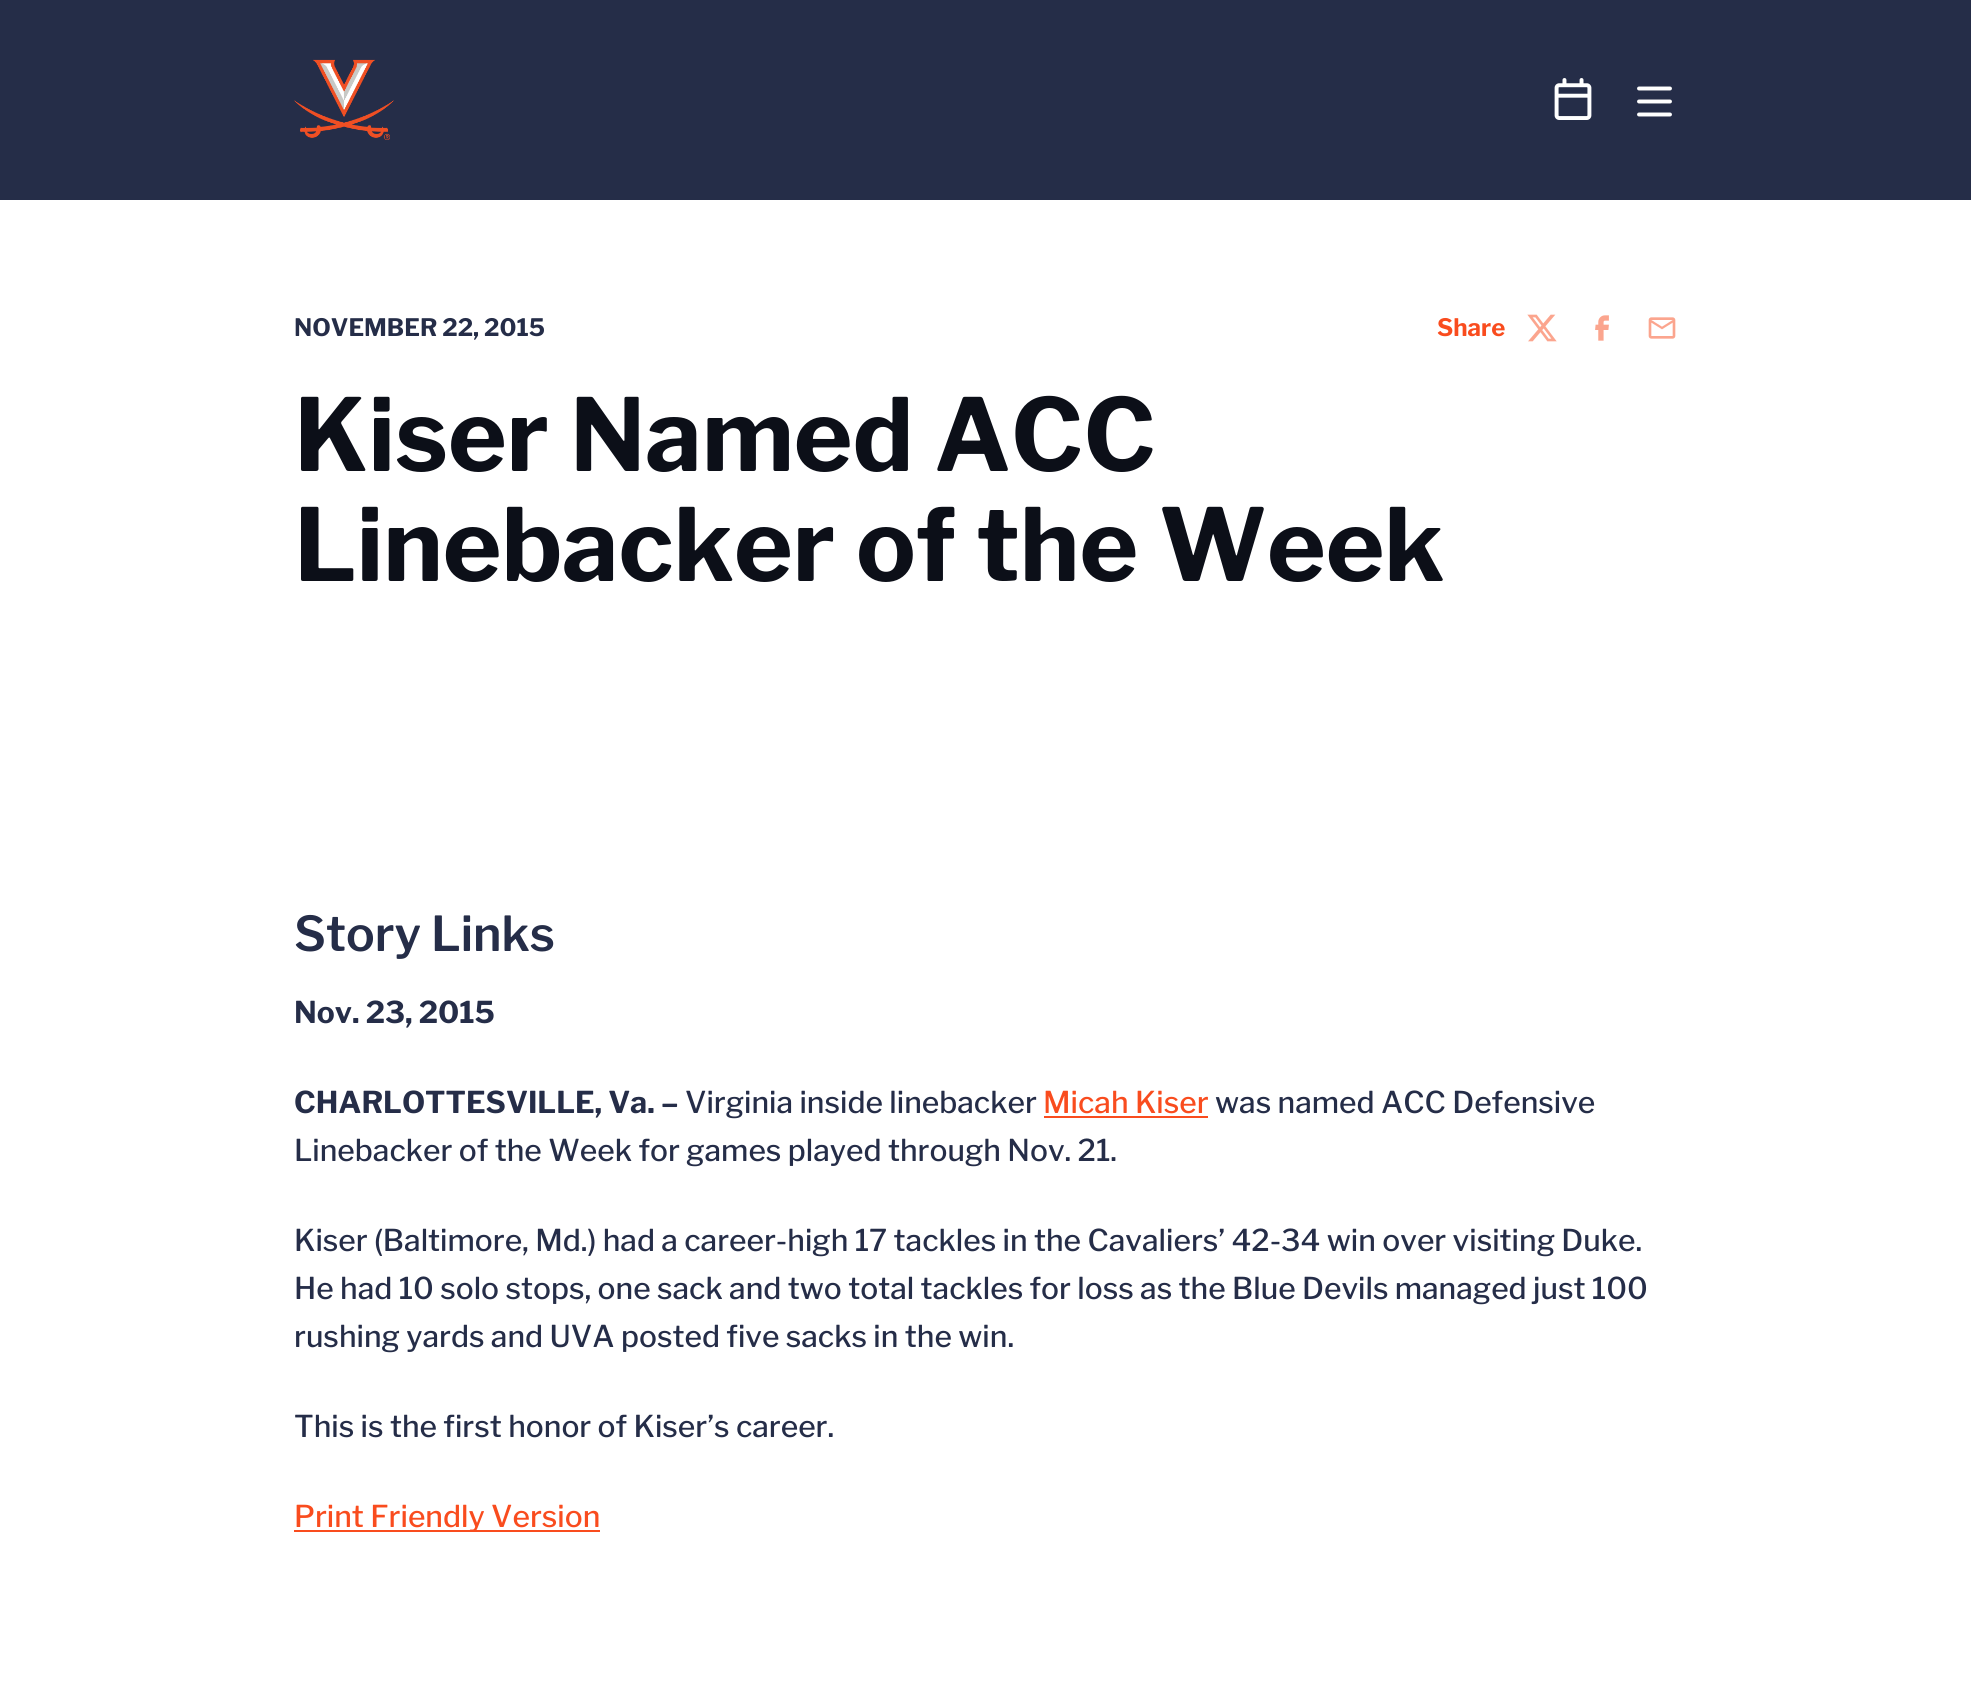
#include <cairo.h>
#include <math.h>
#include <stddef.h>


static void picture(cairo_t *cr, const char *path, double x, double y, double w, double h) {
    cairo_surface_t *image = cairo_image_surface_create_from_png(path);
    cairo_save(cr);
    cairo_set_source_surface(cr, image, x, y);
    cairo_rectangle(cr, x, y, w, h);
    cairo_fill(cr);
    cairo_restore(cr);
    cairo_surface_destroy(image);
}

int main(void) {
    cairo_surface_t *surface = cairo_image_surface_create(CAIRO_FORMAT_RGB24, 1971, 1693);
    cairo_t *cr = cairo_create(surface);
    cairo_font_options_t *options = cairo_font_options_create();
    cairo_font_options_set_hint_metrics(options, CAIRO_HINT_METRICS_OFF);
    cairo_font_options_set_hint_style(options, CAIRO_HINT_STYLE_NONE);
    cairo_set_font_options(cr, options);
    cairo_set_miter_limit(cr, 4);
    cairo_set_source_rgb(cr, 1, 1, 1);
    cairo_paint(cr);
    cairo_set_source_rgb(cr, 0.145, 0.176, 0.282);
    cairo_rectangle(cr, 0, 0, 1971, 200);
    cairo_fill(cr);
    picture(cr, "img1.png", 294, 59, 100, 81);
    picture(cr, "img2.png", 1554, 78, 38, 42);
    cairo_new_path(cr);
    cairo_move_to(cr, 1639, 88.5);
    cairo_line_to(cr, 1670, 88.5);
    cairo_move_to(cr, 1639, 101.5);
    cairo_line_to(cr, 1670, 101.5);
    cairo_move_to(cr, 1670, 114.5);
    cairo_line_to(cr, 1639, 114.5);
    cairo_set_source_rgb(cr, 1, 1, 1);
    cairo_set_line_width(cr, 3.9);
    cairo_set_line_cap(cr, CAIRO_LINE_CAP_ROUND);
    cairo_stroke(cr);
    cairo_select_font_face(cr, "Libre Franklin", CAIRO_FONT_SLANT_NORMAL, CAIRO_FONT_WEIGHT_BOLD);
    cairo_set_font_size(cr, 24);
    cairo_set_source_rgb(cr, 0.145, 0.176, 0.282);
    cairo_move_to(cr, 294, 336);
    cairo_show_text(cr, "NOVEMBER 22, 2015");
    cairo_set_source_rgb(cr, 0.973, 0.298, 0.118);
    cairo_move_to(cr, 1437, 336);
    cairo_show_text(cr, "Share");
    picture(cr, "img3.png", 1527, 314, 30, 28);
    picture(cr, "img4.png", 1595, 315, 14, 26);
    picture(cr, "img5.png", 1648, 317, 28, 22);
    cairo_set_font_size(cr, 100);
    cairo_set_source_rgb(cr, 0.047, 0.059, 0.094);
    cairo_move_to(cr, 294, 471);
    cairo_show_text(cr, "Kiser Named ACC");
    cairo_move_to(cr, 294, 581);
    cairo_show_text(cr, "Linebacker of the Week");
    cairo_select_font_face(cr, "Libre Franklin SemiBold", CAIRO_FONT_SLANT_NORMAL, CAIRO_FONT_WEIGHT_NORMAL);
    cairo_set_font_size(cr, 48);
    cairo_set_source_rgb(cr, 0.145, 0.176, 0.282);
    cairo_move_to(cr, 294, 951);
    cairo_show_text(cr, "Story Links");
    cairo_select_font_face(cr, "Libre Franklin", CAIRO_FONT_SLANT_NORMAL, CAIRO_FONT_WEIGHT_BOLD);
    cairo_set_font_size(cr, 30);
    cairo_move_to(cr, 294, 1023);
    cairo_show_text(cr, "Nov. 23, 2015");
    cairo_move_to(cr, 294, 1113);
    cairo_show_text(cr, "CHARLOTTESVILLE, Va. –");
    cairo_select_font_face(cr, "Libre Franklin Medium", CAIRO_FONT_SLANT_NORMAL, CAIRO_FONT_WEIGHT_NORMAL);
    cairo_move_to(cr, 685, 1113);
    cairo_show_text(cr, "Virginia inside linebacker");
    cairo_set_source_rgb(cr, 0.973, 0.298, 0.118);
    cairo_move_to(cr, 1043, 1113);
    cairo_show_text(cr, "Micah Kiser");
    cairo_rectangle(cr, 1044, 1116, 164, 2);
    cairo_fill(cr);
    cairo_set_source_rgb(cr, 0.145, 0.176, 0.282);
    cairo_move_to(cr, 1215, 1113);
    cairo_show_text(cr, "was named ACC Defensive");
    cairo_move_to(cr, 294, 1161);
    cairo_show_text(cr, "Linebacker of the Week for games played through Nov. 21.");
    cairo_move_to(cr, 294, 1251);
    cairo_show_text(cr, "Kiser (Baltimore, Md.) had a career-high 17 tackles in the Cavaliers’ 42-34 win over visiting Duke.");
    cairo_move_to(cr, 294, 1299);
    cairo_show_text(cr, "He had 10 solo stops, one sack and two total tackles for loss as the Blue Devils managed just 100");
    cairo_move_to(cr, 294, 1347);
    cairo_show_text(cr, "rushing yards and UVA posted five sacks in the win.");
    cairo_move_to(cr, 294, 1437);
    cairo_show_text(cr, "This is the first honor of Kiser’s career.");
    cairo_set_source_rgb(cr, 0.973, 0.298, 0.118);
    cairo_rectangle(cr, 294, 1530, 306, 2);
    cairo_fill(cr);
    cairo_move_to(cr, 294, 1527);
    cairo_show_text(cr, "Print Friendly Version");
    cairo_surface_write_to_png(surface, "page.png");
    cairo_font_options_destroy(options);
    cairo_destroy(cr);
    cairo_surface_destroy(surface);
    return 0;
}
